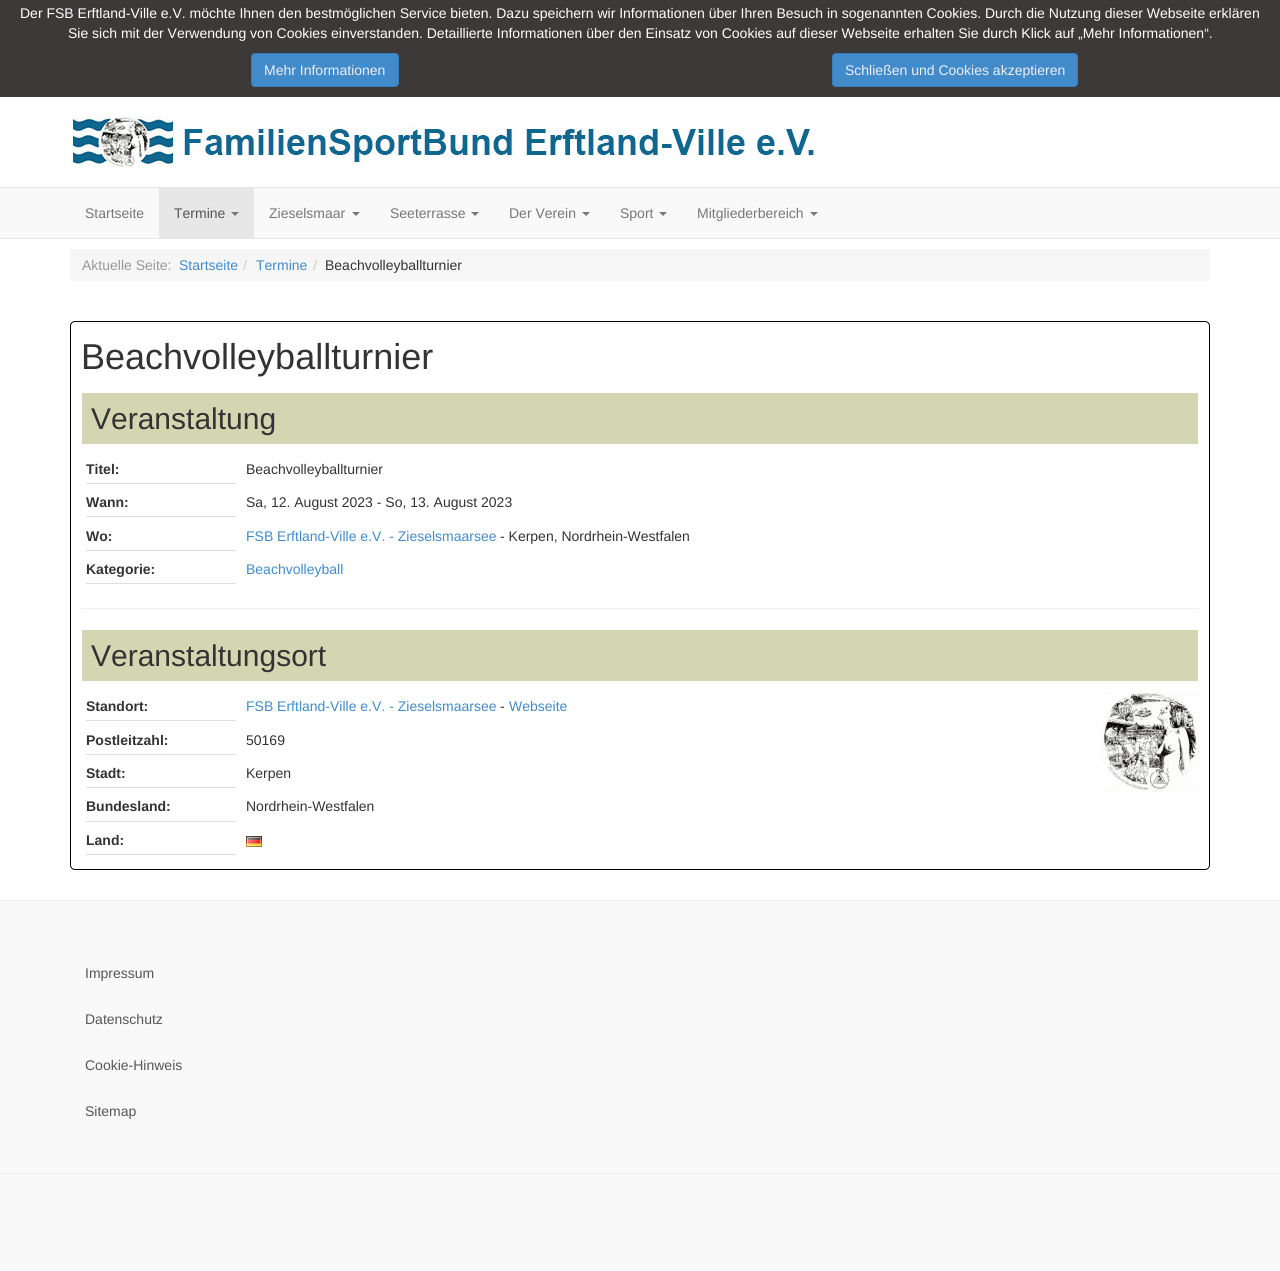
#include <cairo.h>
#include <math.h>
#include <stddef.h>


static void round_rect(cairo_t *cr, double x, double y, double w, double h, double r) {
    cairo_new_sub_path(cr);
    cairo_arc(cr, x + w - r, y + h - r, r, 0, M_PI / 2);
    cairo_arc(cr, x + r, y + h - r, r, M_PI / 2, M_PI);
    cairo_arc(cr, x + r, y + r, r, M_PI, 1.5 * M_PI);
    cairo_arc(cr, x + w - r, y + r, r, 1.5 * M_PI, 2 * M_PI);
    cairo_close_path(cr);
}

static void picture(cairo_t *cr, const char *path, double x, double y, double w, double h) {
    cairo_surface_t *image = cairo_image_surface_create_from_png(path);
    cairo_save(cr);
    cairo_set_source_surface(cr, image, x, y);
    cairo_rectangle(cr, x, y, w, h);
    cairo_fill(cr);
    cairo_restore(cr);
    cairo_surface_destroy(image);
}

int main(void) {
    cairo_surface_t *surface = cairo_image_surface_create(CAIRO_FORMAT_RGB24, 1280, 1271);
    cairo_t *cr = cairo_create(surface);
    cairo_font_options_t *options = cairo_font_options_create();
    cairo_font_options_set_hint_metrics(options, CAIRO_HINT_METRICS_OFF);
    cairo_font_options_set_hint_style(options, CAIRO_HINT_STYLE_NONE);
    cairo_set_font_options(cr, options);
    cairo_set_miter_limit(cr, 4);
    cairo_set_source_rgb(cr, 1, 1, 1);
    cairo_paint(cr);
    cairo_set_source_rgb(cr, 0.239, 0.224, 0.224);
    cairo_rectangle(cr, 0, 0, 1280, 97);
    cairo_fill(cr);
    cairo_select_font_face(cr, "Liberation Sans", CAIRO_FONT_SLANT_NORMAL, CAIRO_FONT_WEIGHT_NORMAL);
    cairo_set_font_size(cr, 14);
    cairo_set_source_rgb(cr, 1, 1, 1);
    cairo_move_to(cr, 20, 18);
    cairo_show_text(cr, "Der FSB Erftland-Ville e.V. möchte Ihnen den bestmöglichen Service bieten. Dazu speichern wir Informationen über Ihren Besuch in sogenannten Cookies. Durch die Nutzung dieser Webseite erklären");
    cairo_move_to(cr, 68, 38);
    cairo_show_text(cr, "Sie sich mit der Verwendung von Cookies einverstanden. Detaillierte Informationen über den Einsatz von Cookies auf dieser Webseite erhalten Sie durch Klick auf „Mehr Informationen“.");
    cairo_set_source_rgb(cr, 0.259, 0.545, 0.792);
    round_rect(cr, 251.5, 53.5, 147, 33, 3.5);
    cairo_fill_preserve(cr);
    cairo_set_source_rgb(cr, 0.208, 0.494, 0.741);
    cairo_set_line_width(cr, 1);
    cairo_stroke(cr);
    cairo_set_source_rgb(cr, 0.933, 0.933, 0.933);
    cairo_move_to(cr, 264, 75);
    cairo_show_text(cr, "Mehr Informationen");
    cairo_set_source_rgb(cr, 0.259, 0.545, 0.792);
    round_rect(cr, 832.5, 53.5, 245, 33, 3.5);
    cairo_fill_preserve(cr);
    cairo_set_source_rgb(cr, 0.208, 0.494, 0.741);
    cairo_stroke(cr);
    cairo_set_source_rgb(cr, 0.933, 0.933, 0.933);
    cairo_move_to(cr, 845, 75);
    cairo_show_text(cr, "Schließen und Cookies akzeptieren");
    picture(cr, "img1.png", 70, 117, 744, 50);
    cairo_set_source_rgb(cr, 0.973, 0.973, 0.973);
    cairo_rectangle(cr, 0, 188, 1280, 50);
    cairo_fill(cr);
    cairo_set_source_rgb(cr, 0.906, 0.906, 0.906);
    cairo_rectangle(cr, 0, 187, 1280, 1);
    cairo_fill(cr);
    cairo_rectangle(cr, 0, 238, 1280, 1);
    cairo_fill(cr);
    cairo_set_source_rgb(cr, 0.467, 0.467, 0.467);
    cairo_move_to(cr, 85, 218);
    cairo_show_text(cr, "Startseite");
    cairo_set_source_rgb(cr, 0.906, 0.906, 0.906);
    cairo_rectangle(cr, 159, 188, 95, 50);
    cairo_fill(cr);
    cairo_set_source_rgb(cr, 0.333, 0.333, 0.333);
    cairo_move_to(cr, 174, 218);
    cairo_show_text(cr, "Termine");
    cairo_set_source_rgb(cr, 0.467, 0.467, 0.467);
    cairo_new_path(cr);
    cairo_move_to(cr, 231, 212);
    cairo_line_to(cr, 239, 212);
    cairo_line_to(cr, 235, 216);
    cairo_close_path(cr);
    cairo_fill(cr);
    cairo_move_to(cr, 269, 218);
    cairo_show_text(cr, "Zieselsmaar");
    cairo_new_path(cr);
    cairo_move_to(cr, 352, 212);
    cairo_line_to(cr, 360, 212);
    cairo_line_to(cr, 356, 216);
    cairo_close_path(cr);
    cairo_fill(cr);
    cairo_move_to(cr, 390, 218);
    cairo_show_text(cr, "Seeterrasse");
    cairo_new_path(cr);
    cairo_move_to(cr, 471, 212);
    cairo_line_to(cr, 479, 212);
    cairo_line_to(cr, 475, 216);
    cairo_close_path(cr);
    cairo_fill(cr);
    cairo_move_to(cr, 509, 218);
    cairo_show_text(cr, "Der Verein");
    cairo_new_path(cr);
    cairo_move_to(cr, 582, 212);
    cairo_line_to(cr, 590, 212);
    cairo_line_to(cr, 586, 216);
    cairo_close_path(cr);
    cairo_fill(cr);
    cairo_move_to(cr, 620, 218);
    cairo_show_text(cr, "Sport");
    cairo_new_path(cr);
    cairo_move_to(cr, 659, 212);
    cairo_line_to(cr, 667, 212);
    cairo_line_to(cr, 663, 216);
    cairo_close_path(cr);
    cairo_fill(cr);
    cairo_move_to(cr, 697, 218);
    cairo_show_text(cr, "Mitgliederbereich");
    cairo_new_path(cr);
    cairo_move_to(cr, 810, 212);
    cairo_line_to(cr, 818, 212);
    cairo_line_to(cr, 814, 216);
    cairo_close_path(cr);
    cairo_fill(cr);
    cairo_set_source_rgb(cr, 0.961, 0.961, 0.961);
    cairo_rectangle(cr, 70, 249, 1140, 32);
    cairo_fill(cr);
    cairo_set_source_rgb(cr, 0.6, 0.6, 0.6);
    cairo_move_to(cr, 82, 270);
    cairo_show_text(cr, "Aktuelle Seite:");
    cairo_set_source_rgb(cr, 0.259, 0.545, 0.792);
    cairo_move_to(cr, 179, 270);
    cairo_show_text(cr, "Startseite");
    cairo_set_source_rgb(cr, 0.8, 0.8, 0.8);
    cairo_move_to(cr, 243, 270);
    cairo_show_text(cr, "/");
    cairo_set_source_rgb(cr, 0.259, 0.545, 0.792);
    cairo_move_to(cr, 256, 270);
    cairo_show_text(cr, "Termine");
    cairo_set_source_rgb(cr, 0.8, 0.8, 0.8);
    cairo_move_to(cr, 313, 270);
    cairo_show_text(cr, "/");
    cairo_set_source_rgb(cr, 0.2, 0.2, 0.2);
    cairo_move_to(cr, 325, 270);
    cairo_show_text(cr, "Beachvolleyballturnier");
    round_rect(cr, 70.5, 321.5, 1139, 548, 4.5);
    cairo_set_source_rgb(cr, 0, 0, 0);
    cairo_stroke(cr);
    cairo_set_font_size(cr, 36);
    cairo_set_source_rgb(cr, 0.2, 0.2, 0.2);
    cairo_move_to(cr, 81, 369);
    cairo_show_text(cr, "Beachvolleyballturnier");
    cairo_set_source_rgb(cr, 0.831, 0.839, 0.698);
    cairo_rectangle(cr, 82, 393, 1116, 51);
    cairo_fill(cr);
    cairo_set_font_size(cr, 30);
    cairo_set_source_rgb(cr, 0.2, 0.2, 0.2);
    cairo_move_to(cr, 91, 429);
    cairo_show_text(cr, "Veranstaltung");
    cairo_set_source_rgb(cr, 0.867, 0.867, 0.867);
    cairo_rectangle(cr, 86, 483, 150, 1);
    cairo_fill(cr);
    cairo_select_font_face(cr, "Liberation Sans", CAIRO_FONT_SLANT_NORMAL, CAIRO_FONT_WEIGHT_BOLD);
    cairo_set_font_size(cr, 14);
    cairo_set_source_rgb(cr, 0.2, 0.2, 0.2);
    cairo_move_to(cr, 86, 474);
    cairo_show_text(cr, "Titel:");
    cairo_select_font_face(cr, "Liberation Sans", CAIRO_FONT_SLANT_NORMAL, CAIRO_FONT_WEIGHT_NORMAL);
    cairo_move_to(cr, 246, 474);
    cairo_show_text(cr, "Beachvolleyballturnier");
    cairo_set_source_rgb(cr, 0.867, 0.867, 0.867);
    cairo_rectangle(cr, 86, 516, 150, 1);
    cairo_fill(cr);
    cairo_select_font_face(cr, "Liberation Sans", CAIRO_FONT_SLANT_NORMAL, CAIRO_FONT_WEIGHT_BOLD);
    cairo_set_source_rgb(cr, 0.2, 0.2, 0.2);
    cairo_move_to(cr, 86, 507);
    cairo_show_text(cr, "Wann:");
    cairo_select_font_face(cr, "Liberation Sans", CAIRO_FONT_SLANT_NORMAL, CAIRO_FONT_WEIGHT_NORMAL);
    cairo_move_to(cr, 246, 507);
    cairo_show_text(cr, "Sa, 12. August 2023 - So, 13. August 2023");
    cairo_set_source_rgb(cr, 0.867, 0.867, 0.867);
    cairo_rectangle(cr, 86, 550, 150, 1);
    cairo_fill(cr);
    cairo_select_font_face(cr, "Liberation Sans", CAIRO_FONT_SLANT_NORMAL, CAIRO_FONT_WEIGHT_BOLD);
    cairo_set_source_rgb(cr, 0.2, 0.2, 0.2);
    cairo_move_to(cr, 86, 541);
    cairo_show_text(cr, "Wo:");
    cairo_select_font_face(cr, "Liberation Sans", CAIRO_FONT_SLANT_NORMAL, CAIRO_FONT_WEIGHT_NORMAL);
    cairo_set_source_rgb(cr, 0.259, 0.545, 0.792);
    cairo_move_to(cr, 246, 541);
    cairo_show_text(cr, "FSB Erftland-Ville e.V. - Zieselsmaarsee");
    cairo_set_source_rgb(cr, 0.2, 0.2, 0.2);
    cairo_move_to(cr, 500, 541);
    cairo_show_text(cr, "- Kerpen, Nordrhein-Westfalen");
    cairo_set_source_rgb(cr, 0.867, 0.867, 0.867);
    cairo_rectangle(cr, 86, 583, 150, 1);
    cairo_fill(cr);
    cairo_select_font_face(cr, "Liberation Sans", CAIRO_FONT_SLANT_NORMAL, CAIRO_FONT_WEIGHT_BOLD);
    cairo_set_source_rgb(cr, 0.2, 0.2, 0.2);
    cairo_move_to(cr, 86, 574);
    cairo_show_text(cr, "Kategorie:");
    cairo_select_font_face(cr, "Liberation Sans", CAIRO_FONT_SLANT_NORMAL, CAIRO_FONT_WEIGHT_NORMAL);
    cairo_set_source_rgb(cr, 0.259, 0.545, 0.792);
    cairo_move_to(cr, 246, 574);
    cairo_show_text(cr, "Beachvolleyball");
    cairo_set_source_rgb(cr, 0.933, 0.933, 0.933);
    cairo_rectangle(cr, 81, 608, 1118, 1);
    cairo_fill(cr);
    cairo_set_source_rgb(cr, 0.831, 0.839, 0.698);
    cairo_rectangle(cr, 82, 630, 1116, 51);
    cairo_fill(cr);
    cairo_set_font_size(cr, 30);
    cairo_set_source_rgb(cr, 0.2, 0.2, 0.2);
    cairo_move_to(cr, 91, 666);
    cairo_show_text(cr, "Veranstaltungsort");
    cairo_set_source_rgb(cr, 0.867, 0.867, 0.867);
    cairo_rectangle(cr, 86, 720, 150, 1);
    cairo_fill(cr);
    cairo_select_font_face(cr, "Liberation Sans", CAIRO_FONT_SLANT_NORMAL, CAIRO_FONT_WEIGHT_BOLD);
    cairo_set_font_size(cr, 14);
    cairo_set_source_rgb(cr, 0.2, 0.2, 0.2);
    cairo_move_to(cr, 86, 711);
    cairo_show_text(cr, "Standort:");
    cairo_select_font_face(cr, "Liberation Sans", CAIRO_FONT_SLANT_NORMAL, CAIRO_FONT_WEIGHT_NORMAL);
    cairo_set_source_rgb(cr, 0.259, 0.545, 0.792);
    cairo_move_to(cr, 246, 711);
    cairo_show_text(cr, "FSB Erftland-Ville e.V. - Zieselsmaarsee");
    cairo_set_source_rgb(cr, 0.2, 0.2, 0.2);
    cairo_move_to(cr, 500, 711);
    cairo_show_text(cr, "-");
    cairo_set_source_rgb(cr, 0.259, 0.545, 0.792);
    cairo_move_to(cr, 509, 711);
    cairo_show_text(cr, "Webseite");
    picture(cr, "img2.png", 1101, 692, 98, 100);
    cairo_set_source_rgb(cr, 0.867, 0.867, 0.867);
    cairo_rectangle(cr, 86, 754, 150, 1);
    cairo_fill(cr);
    cairo_select_font_face(cr, "Liberation Sans", CAIRO_FONT_SLANT_NORMAL, CAIRO_FONT_WEIGHT_BOLD);
    cairo_set_source_rgb(cr, 0.2, 0.2, 0.2);
    cairo_move_to(cr, 86, 745);
    cairo_show_text(cr, "Postleitzahl:");
    cairo_select_font_face(cr, "Liberation Sans", CAIRO_FONT_SLANT_NORMAL, CAIRO_FONT_WEIGHT_NORMAL);
    cairo_move_to(cr, 246, 745);
    cairo_show_text(cr, "50169");
    cairo_set_source_rgb(cr, 0.867, 0.867, 0.867);
    cairo_rectangle(cr, 86, 787, 150, 1);
    cairo_fill(cr);
    cairo_select_font_face(cr, "Liberation Sans", CAIRO_FONT_SLANT_NORMAL, CAIRO_FONT_WEIGHT_BOLD);
    cairo_set_source_rgb(cr, 0.2, 0.2, 0.2);
    cairo_move_to(cr, 86, 778);
    cairo_show_text(cr, "Stadt:");
    cairo_select_font_face(cr, "Liberation Sans", CAIRO_FONT_SLANT_NORMAL, CAIRO_FONT_WEIGHT_NORMAL);
    cairo_move_to(cr, 246, 778);
    cairo_show_text(cr, "Kerpen");
    cairo_set_source_rgb(cr, 0.867, 0.867, 0.867);
    cairo_rectangle(cr, 86, 821, 150, 1);
    cairo_fill(cr);
    cairo_select_font_face(cr, "Liberation Sans", CAIRO_FONT_SLANT_NORMAL, CAIRO_FONT_WEIGHT_BOLD);
    cairo_set_source_rgb(cr, 0.2, 0.2, 0.2);
    cairo_move_to(cr, 86, 811);
    cairo_show_text(cr, "Bundesland:");
    cairo_select_font_face(cr, "Liberation Sans", CAIRO_FONT_SLANT_NORMAL, CAIRO_FONT_WEIGHT_NORMAL);
    cairo_move_to(cr, 246, 811);
    cairo_show_text(cr, "Nordrhein-Westfalen");
    cairo_set_source_rgb(cr, 0.867, 0.867, 0.867);
    cairo_rectangle(cr, 86, 854, 150, 1);
    cairo_fill(cr);
    cairo_select_font_face(cr, "Liberation Sans", CAIRO_FONT_SLANT_NORMAL, CAIRO_FONT_WEIGHT_BOLD);
    cairo_set_source_rgb(cr, 0.2, 0.2, 0.2);
    cairo_move_to(cr, 86, 845);
    cairo_show_text(cr, "Land:");
    picture(cr, "img3.png", 246, 836, 16, 11);
    cairo_set_source_rgb(cr, 0.973, 0.973, 0.973);
    cairo_rectangle(cr, 0, 901, 1280, 370);
    cairo_fill(cr);
    cairo_set_source_rgb(cr, 0.933, 0.933, 0.933);
    cairo_rectangle(cr, 0, 900, 1280, 1);
    cairo_fill(cr);
    cairo_select_font_face(cr, "Liberation Sans", CAIRO_FONT_SLANT_NORMAL, CAIRO_FONT_WEIGHT_NORMAL);
    cairo_set_source_rgb(cr, 0.333, 0.333, 0.333);
    cairo_move_to(cr, 85, 978);
    cairo_show_text(cr, "Impressum");
    cairo_move_to(cr, 85, 1024);
    cairo_show_text(cr, "Datenschutz");
    cairo_move_to(cr, 85, 1070);
    cairo_show_text(cr, "Cookie-Hinweis");
    cairo_move_to(cr, 85, 1116);
    cairo_show_text(cr, "Sitemap");
    cairo_set_source_rgb(cr, 0.933, 0.933, 0.933);
    cairo_rectangle(cr, 0, 1173, 1280, 1);
    cairo_fill(cr);
    cairo_surface_write_to_png(surface, "page.png");
    cairo_font_options_destroy(options);
    cairo_destroy(cr);
    cairo_surface_destroy(surface);
    return 0;
}
